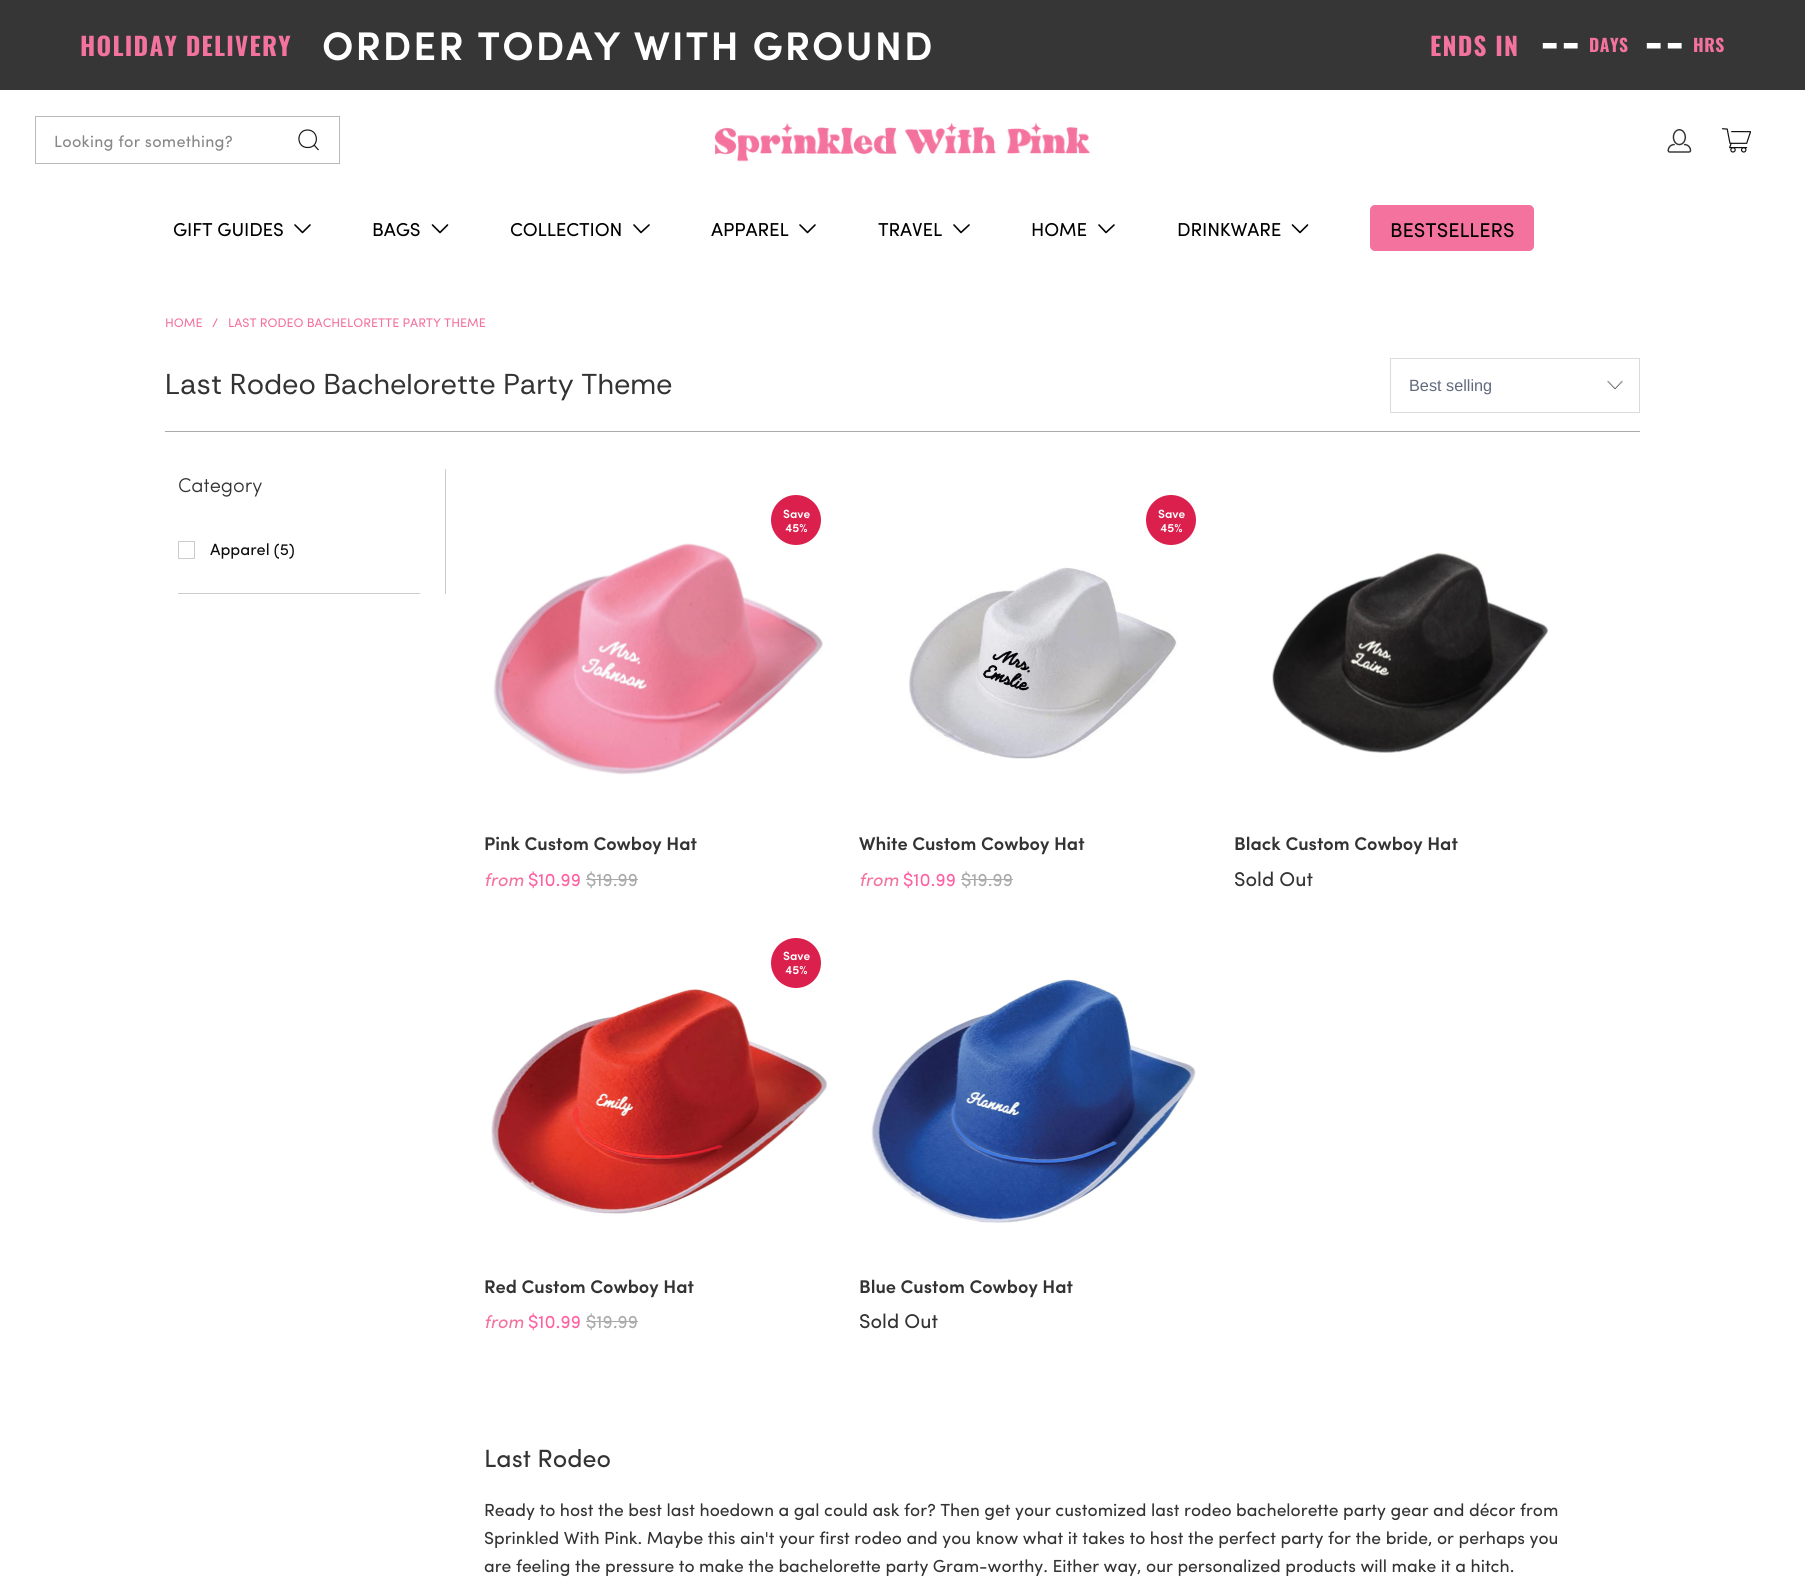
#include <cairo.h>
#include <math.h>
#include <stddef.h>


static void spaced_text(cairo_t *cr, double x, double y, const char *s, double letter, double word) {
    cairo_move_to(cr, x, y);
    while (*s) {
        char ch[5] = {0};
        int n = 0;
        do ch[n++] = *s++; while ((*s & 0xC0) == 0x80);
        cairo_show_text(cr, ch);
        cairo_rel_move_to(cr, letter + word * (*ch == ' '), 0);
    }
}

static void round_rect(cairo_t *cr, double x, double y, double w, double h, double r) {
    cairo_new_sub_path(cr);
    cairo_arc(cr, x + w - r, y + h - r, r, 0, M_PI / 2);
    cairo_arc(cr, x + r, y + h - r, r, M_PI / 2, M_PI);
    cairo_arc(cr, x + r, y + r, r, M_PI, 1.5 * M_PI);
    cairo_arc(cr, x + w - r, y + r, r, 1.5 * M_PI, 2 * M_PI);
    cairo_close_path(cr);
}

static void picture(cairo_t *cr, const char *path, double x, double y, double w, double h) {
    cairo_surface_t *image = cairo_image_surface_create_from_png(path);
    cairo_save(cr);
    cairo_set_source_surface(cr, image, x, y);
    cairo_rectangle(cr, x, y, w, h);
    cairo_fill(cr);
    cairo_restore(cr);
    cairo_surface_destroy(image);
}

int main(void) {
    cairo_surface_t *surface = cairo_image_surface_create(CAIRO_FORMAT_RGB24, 1805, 1579);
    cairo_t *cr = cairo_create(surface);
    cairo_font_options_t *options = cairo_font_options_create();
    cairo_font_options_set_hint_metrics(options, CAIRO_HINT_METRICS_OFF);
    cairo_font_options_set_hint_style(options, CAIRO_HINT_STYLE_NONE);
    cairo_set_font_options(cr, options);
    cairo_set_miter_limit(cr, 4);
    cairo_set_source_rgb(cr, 1, 1, 1);
    cairo_paint(cr);
    cairo_set_source_rgb(cr, 0.212, 0.212, 0.212);
    cairo_rectangle(cr, 0, 0, 1805, 90);
    cairo_fill(cr);
    cairo_select_font_face(cr, "Oswald", CAIRO_FONT_SLANT_NORMAL, CAIRO_FONT_WEIGHT_BOLD);
    cairo_set_font_size(cr, 25);
    cairo_set_source_rgb(cr, 0.957, 0.451, 0.62);
    spaced_text(cr, 80, 56, "HOLIDAY DELIVERY", 1.25, 0);
    cairo_select_font_face(cr, "Sofia SemiBold", CAIRO_FONT_SLANT_NORMAL, CAIRO_FONT_WEIGHT_NORMAL);
    cairo_set_font_size(cr, 40);
    cairo_set_source_rgb(cr, 1, 1, 1);
    spaced_text(cr, 322, 60, "ORDER TODAY WITH GROUND", 2, 0);
    cairo_select_font_face(cr, "Oswald", CAIRO_FONT_SLANT_NORMAL, CAIRO_FONT_WEIGHT_BOLD);
    cairo_set_font_size(cr, 25);
    cairo_set_source_rgb(cr, 0.957, 0.451, 0.62);
    spaced_text(cr, 1430, 56, "ENDS IN", 1.25, 0);
    cairo_select_font_face(cr, "Roboto", CAIRO_FONT_SLANT_NORMAL, CAIRO_FONT_WEIGHT_BOLD);
    cairo_set_font_size(cr, 50);
    cairo_set_source_rgb(cr, 1, 1, 1);
    spaced_text(cr, 1540, 61, "--", 1.25, 0);
    cairo_select_font_face(cr, "Oswald", CAIRO_FONT_SLANT_NORMAL, CAIRO_FONT_WEIGHT_BOLD);
    cairo_set_font_size(cr, 17.5);
    cairo_set_source_rgb(cr, 0.957, 0.451, 0.62);
    spaced_text(cr, 1589, 52, "DAYS", 0.5, 0);
    cairo_select_font_face(cr, "Roboto", CAIRO_FONT_SLANT_NORMAL, CAIRO_FONT_WEIGHT_BOLD);
    cairo_set_font_size(cr, 50);
    cairo_set_source_rgb(cr, 1, 1, 1);
    spaced_text(cr, 1644, 61, "--", 1.25, 0);
    cairo_select_font_face(cr, "Oswald", CAIRO_FONT_SLANT_NORMAL, CAIRO_FONT_WEIGHT_BOLD);
    cairo_set_font_size(cr, 17.5);
    cairo_set_source_rgb(cr, 0.957, 0.451, 0.62);
    spaced_text(cr, 1693, 52, "HRS", 0.5, 0);
    cairo_rectangle(cr, 35.5, 116.5, 304, 47);
    cairo_set_source_rgb(cr, 0.729, 0.729, 0.729);
    cairo_set_line_width(cr, 1);
    cairo_stroke(cr);
    cairo_select_font_face(cr, "Sofia", CAIRO_FONT_SLANT_NORMAL, CAIRO_FONT_WEIGHT_NORMAL);
    cairo_set_font_size(cr, 16.25);
    cairo_set_source_rgb(cr, 0.533, 0.533, 0.533);
    spaced_text(cr, 54, 147, "Looking for something?", 0.25, 0);
    cairo_new_path(cr);
    cairo_move_to(cr, 314, 145);
    cairo_line_to(cr, 318.5, 150);
    cairo_move_to(cr, 307.5, 130);
    cairo_curve_to(cr, 319, 130, 319.5, 147.5, 308, 147.5);
    cairo_curve_to(cr, 296, 148, 296, 130, 307.5, 130);
    cairo_close_path(cr);
    cairo_set_source_rgb(cr, 0.094, 0.094, 0.094);
    cairo_set_line_width(cr, 1.2);
    cairo_stroke(cr);
    picture(cr, "img1.png", 715, 122, 375, 40);
    picture(cr, "img2.png", 1667, 129, 25, 24);
    picture(cr, "img3.png", 1721, 128, 30, 25);
    cairo_set_font_size(cr, 18.75);
    cairo_set_source_rgb(cr, 0, 0, 0);
    spaced_text(cr, 173, 236, "GIFT GUIDES", -0.1, 0);
    cairo_new_path(cr);
    cairo_move_to(cr, 295, 225);
    cairo_line_to(cr, 302.5, 232.5);
    cairo_line_to(cr, 310, 225);
    cairo_set_line_width(cr, 1.6);
    cairo_set_line_cap(cr, CAIRO_LINE_CAP_ROUND);
    cairo_set_line_join(cr, CAIRO_LINE_JOIN_ROUND);
    cairo_stroke(cr);
    spaced_text(cr, 372, 236, "BAGS", -0.1, 0);
    cairo_new_path(cr);
    cairo_move_to(cr, 432.5, 225);
    cairo_line_to(cr, 440, 232.5);
    cairo_line_to(cr, 447.5, 225);
    cairo_stroke(cr);
    spaced_text(cr, 510, 236, "COLLECTION", -0.1, 0);
    cairo_new_path(cr);
    cairo_move_to(cr, 634, 225);
    cairo_line_to(cr, 641, 232.5);
    cairo_line_to(cr, 649, 225);
    cairo_stroke(cr);
    spaced_text(cr, 711, 236, "APPAREL", -0.1, 0);
    cairo_new_path(cr);
    cairo_move_to(cr, 800, 225);
    cairo_line_to(cr, 807.5, 232.5);
    cairo_line_to(cr, 815, 225);
    cairo_stroke(cr);
    spaced_text(cr, 878, 236, "TRAVEL", -0.1, 0);
    cairo_new_path(cr);
    cairo_move_to(cr, 954, 225);
    cairo_line_to(cr, 961, 232.5);
    cairo_line_to(cr, 969, 225);
    cairo_stroke(cr);
    spaced_text(cr, 1031, 236, "HOME", -0.1, 0);
    cairo_new_path(cr);
    cairo_move_to(cr, 1099, 225);
    cairo_line_to(cr, 1106, 232.5);
    cairo_line_to(cr, 1114, 225);
    cairo_stroke(cr);
    spaced_text(cr, 1177, 236, "DRINKWARE", -0.1, 0);
    cairo_new_path(cr);
    cairo_move_to(cr, 1292.5, 225);
    cairo_line_to(cr, 1300, 232.5);
    cairo_line_to(cr, 1307.5, 225);
    cairo_stroke(cr);
    cairo_set_source_rgb(cr, 0.957, 0.451, 0.62);
    round_rect(cr, 1370, 205, 164, 46, 5);
    cairo_fill(cr);
    cairo_set_font_size(cr, 20);
    cairo_set_source_rgb(cr, 0, 0, 0);
    cairo_move_to(cr, 1390, 237);
    cairo_show_text(cr, "BESTSELLERS");
    cairo_set_font_size(cr, 12.5);
    cairo_set_source_rgb(cr, 0.957, 0.451, 0.62);
    cairo_move_to(cr, 165, 327);
    cairo_show_text(cr, "HOME");
    cairo_move_to(cr, 212, 327);
    cairo_show_text(cr, "/");
    cairo_move_to(cr, 228, 327);
    cairo_show_text(cr, "LAST RODEO BACHELORETTE PARTY THEME");
    cairo_select_font_face(cr, "Rethink Sans Thin", CAIRO_FONT_SLANT_NORMAL, CAIRO_FONT_WEIGHT_NORMAL);
    cairo_set_font_size(cr, 28.75);
    cairo_set_source_rgb(cr, 0.2, 0.2, 0.2);
    cairo_move_to(cr, 165, 394);
    cairo_show_text(cr, "Last Rodeo Bachelorette Party Theme");
    picture(cr, "img4.png", 1607, 380, 16, 10);
    cairo_rectangle(cr, 1390.5, 358.5, 249, 54);
    cairo_set_source_rgb(cr, 0.851, 0.859, 0.863);
    cairo_set_line_width(cr, 1);
    cairo_set_line_cap(cr, CAIRO_LINE_CAP_BUTT);
    cairo_set_line_join(cr, CAIRO_LINE_JOIN_MITER);
    cairo_stroke(cr);
    cairo_select_font_face(cr, "Liberation Sans", CAIRO_FONT_SLANT_NORMAL, CAIRO_FONT_WEIGHT_NORMAL);
    cairo_set_font_size(cr, 16.25);
    cairo_set_source_rgb(cr, 0.373, 0.416, 0.49);
    cairo_move_to(cr, 1409, 391);
    cairo_show_text(cr, "Best selling");
    cairo_set_source_rgb(cr, 0.667, 0.667, 0.667);
    cairo_rectangle(cr, 165, 431, 1475, 1);
    cairo_fill(cr);
    cairo_set_source_rgb(cr, 0.8, 0.8, 0.8);
    cairo_rectangle(cr, 445, 469, 1, 125);
    cairo_fill(cr);
    cairo_select_font_face(cr, "Sofia Light", CAIRO_FONT_SLANT_NORMAL, CAIRO_FONT_WEIGHT_NORMAL);
    cairo_set_font_size(cr, 20);
    cairo_set_source_rgb(cr, 0.2, 0.2, 0.2);
    cairo_move_to(cr, 178, 492);
    cairo_show_text(cr, "Category");
    cairo_rectangle(cr, 178.5, 541.5, 16, 17);
    cairo_set_source_rgb(cr, 0.8, 0.8, 0.8);
    cairo_stroke(cr);
    cairo_select_font_face(cr, "Sofia", CAIRO_FONT_SLANT_NORMAL, CAIRO_FONT_WEIGHT_NORMAL);
    cairo_set_font_size(cr, 16.25);
    cairo_set_source_rgb(cr, 0.051, 0.051, 0.051);
    cairo_move_to(cr, 210, 555);
    cairo_show_text(cr, "Apparel (5)");
    cairo_set_source_rgb(cr, 0.8, 0.8, 0.8);
    cairo_rectangle(cr, 178, 593, 242, 1);
    cairo_fill(cr);
    picture(cr, "img5.png", 493, 543, 330, 232);
    cairo_set_source_rgb(cr, 0.859, 0.125, 0.302);
    cairo_arc(cr, 796, 520, 25, 0, 2 * M_PI);
    cairo_fill(cr);
    cairo_select_font_face(cr, "Sofia SemiBold", CAIRO_FONT_SLANT_NORMAL, CAIRO_FONT_WEIGHT_NORMAL);
    cairo_set_font_size(cr, 12);
    cairo_set_source_rgb(cr, 1, 1, 1);
    cairo_move_to(cr, 783, 518);
    cairo_show_text(cr, "Save");
    cairo_move_to(cr, 785, 532);
    cairo_show_text(cr, "45%");
    cairo_set_font_size(cr, 18.4);
    cairo_set_source_rgb(cr, 0.2, 0.2, 0.2);
    cairo_move_to(cr, 484, 850);
    cairo_show_text(cr, "Pink Custom Cowboy Hat");
    cairo_select_font_face(cr, "Sofia", CAIRO_FONT_SLANT_ITALIC, CAIRO_FONT_WEIGHT_NORMAL);
    cairo_set_font_size(cr, 18);
    cairo_set_source_rgb(cr, 0.957, 0.451, 0.62);
    cairo_move_to(cr, 484, 886);
    cairo_show_text(cr, "from");
    cairo_select_font_face(cr, "Sofia", CAIRO_FONT_SLANT_NORMAL, CAIRO_FONT_WEIGHT_NORMAL);
    cairo_set_font_size(cr, 18.4);
    cairo_set_source_rgb(cr, 1, 0.376, 0.635);
    cairo_move_to(cr, 528, 886);
    cairo_show_text(cr, "$10.99");
    cairo_set_source_rgb(cr, 0.667, 0.667, 0.667);
    cairo_move_to(cr, 586, 886);
    cairo_show_text(cr, "$19.99");
    cairo_rectangle(cr, 586, 879, 52, 1);
    cairo_fill(cr);
    cairo_set_source_rgb(cr, 0.859, 0.125, 0.302);
    cairo_arc(cr, 1171, 520, 25, 0, 2 * M_PI);
    cairo_fill(cr);
    cairo_select_font_face(cr, "Sofia SemiBold", CAIRO_FONT_SLANT_NORMAL, CAIRO_FONT_WEIGHT_NORMAL);
    cairo_set_font_size(cr, 12);
    cairo_set_source_rgb(cr, 1, 1, 1);
    cairo_move_to(cr, 1158, 518);
    cairo_show_text(cr, "Save");
    cairo_move_to(cr, 1160, 532);
    cairo_show_text(cr, "45%");
    picture(cr, "img6.png", 908, 566, 270, 193);
    cairo_set_font_size(cr, 18.4);
    cairo_set_source_rgb(cr, 0.2, 0.2, 0.2);
    cairo_move_to(cr, 859, 850);
    cairo_show_text(cr, "White Custom Cowboy Hat");
    cairo_select_font_face(cr, "Sofia", CAIRO_FONT_SLANT_ITALIC, CAIRO_FONT_WEIGHT_NORMAL);
    cairo_set_font_size(cr, 18);
    cairo_set_source_rgb(cr, 0.957, 0.451, 0.62);
    cairo_move_to(cr, 859, 886);
    cairo_show_text(cr, "from");
    cairo_select_font_face(cr, "Sofia", CAIRO_FONT_SLANT_NORMAL, CAIRO_FONT_WEIGHT_NORMAL);
    cairo_set_font_size(cr, 18.4);
    cairo_set_source_rgb(cr, 1, 0.376, 0.635);
    cairo_move_to(cr, 903, 886);
    cairo_show_text(cr, "$10.99");
    cairo_set_source_rgb(cr, 0.667, 0.667, 0.667);
    cairo_move_to(cr, 961, 886);
    cairo_show_text(cr, "$19.99");
    cairo_rectangle(cr, 961, 879, 52, 1);
    cairo_fill(cr);
    picture(cr, "img7.png", 1272, 552, 277, 201);
    cairo_select_font_face(cr, "Sofia SemiBold", CAIRO_FONT_SLANT_NORMAL, CAIRO_FONT_WEIGHT_NORMAL);
    cairo_set_source_rgb(cr, 0.2, 0.2, 0.2);
    cairo_move_to(cr, 1234, 850);
    cairo_show_text(cr, "Black Custom Cowboy Hat");
    cairo_select_font_face(cr, "Sofia", CAIRO_FONT_SLANT_NORMAL, CAIRO_FONT_WEIGHT_NORMAL);
    cairo_set_font_size(cr, 20);
    cairo_move_to(cr, 1234, 886);
    cairo_show_text(cr, "Sold Out");
    cairo_set_source_rgb(cr, 0.859, 0.125, 0.302);
    cairo_new_path(cr);
    cairo_arc(cr, 796, 963, 25, 0, 2 * M_PI);
    cairo_fill(cr);
    cairo_select_font_face(cr, "Sofia SemiBold", CAIRO_FONT_SLANT_NORMAL, CAIRO_FONT_WEIGHT_NORMAL);
    cairo_set_font_size(cr, 12);
    cairo_set_source_rgb(cr, 1, 1, 1);
    cairo_move_to(cr, 783, 960);
    cairo_show_text(cr, "Save");
    cairo_move_to(cr, 785, 974);
    cairo_show_text(cr, "45%");
    picture(cr, "img8.png", 491, 989, 336, 225);
    cairo_set_font_size(cr, 18.4);
    cairo_set_source_rgb(cr, 0.2, 0.2, 0.2);
    cairo_move_to(cr, 484, 1293);
    cairo_show_text(cr, "Red Custom Cowboy Hat");
    cairo_select_font_face(cr, "Sofia", CAIRO_FONT_SLANT_ITALIC, CAIRO_FONT_WEIGHT_NORMAL);
    cairo_set_font_size(cr, 18);
    cairo_set_source_rgb(cr, 0.957, 0.451, 0.62);
    cairo_move_to(cr, 484, 1328);
    cairo_show_text(cr, "from");
    cairo_select_font_face(cr, "Sofia", CAIRO_FONT_SLANT_NORMAL, CAIRO_FONT_WEIGHT_NORMAL);
    cairo_set_font_size(cr, 18.4);
    cairo_set_source_rgb(cr, 1, 0.376, 0.635);
    cairo_move_to(cr, 528, 1328);
    cairo_show_text(cr, "$10.99");
    cairo_set_source_rgb(cr, 0.667, 0.667, 0.667);
    cairo_move_to(cr, 586, 1328);
    cairo_show_text(cr, "$19.99");
    cairo_rectangle(cr, 586, 1321, 52, 1);
    cairo_fill(cr);
    picture(cr, "img9.png", 871, 979, 325, 244);
    cairo_select_font_face(cr, "Sofia SemiBold", CAIRO_FONT_SLANT_NORMAL, CAIRO_FONT_WEIGHT_NORMAL);
    cairo_set_source_rgb(cr, 0.2, 0.2, 0.2);
    cairo_move_to(cr, 859, 1293);
    cairo_show_text(cr, "Blue Custom Cowboy Hat");
    cairo_select_font_face(cr, "Sofia", CAIRO_FONT_SLANT_NORMAL, CAIRO_FONT_WEIGHT_NORMAL);
    cairo_set_font_size(cr, 20);
    cairo_move_to(cr, 859, 1328);
    cairo_show_text(cr, "Sold Out");
    cairo_set_font_size(cr, 25);
    cairo_move_to(cr, 484, 1467);
    cairo_show_text(cr, "Last Rodeo");
    cairo_set_font_size(cr, 17.5);
    cairo_move_to(cr, 484, 1516);
    cairo_show_text(cr, "Ready to host the best last hoedown a gal could ask for? Then get your customized last rodeo bachelorette party gear and décor from");
    cairo_move_to(cr, 484, 1544);
    cairo_show_text(cr, "Sprinkled With Pink. Maybe this ain't your first rodeo and you know what it takes to host the perfect party for the bride, or perhaps you");
    cairo_move_to(cr, 484, 1572);
    cairo_show_text(cr, "are feeling the pressure to make the bachelorette party Gram-worthy. Either way, our personalized products will make it a hitch.");
    cairo_surface_write_to_png(surface, "page.png");
    cairo_font_options_destroy(options);
    cairo_destroy(cr);
    cairo_surface_destroy(surface);
    return 0;
}
